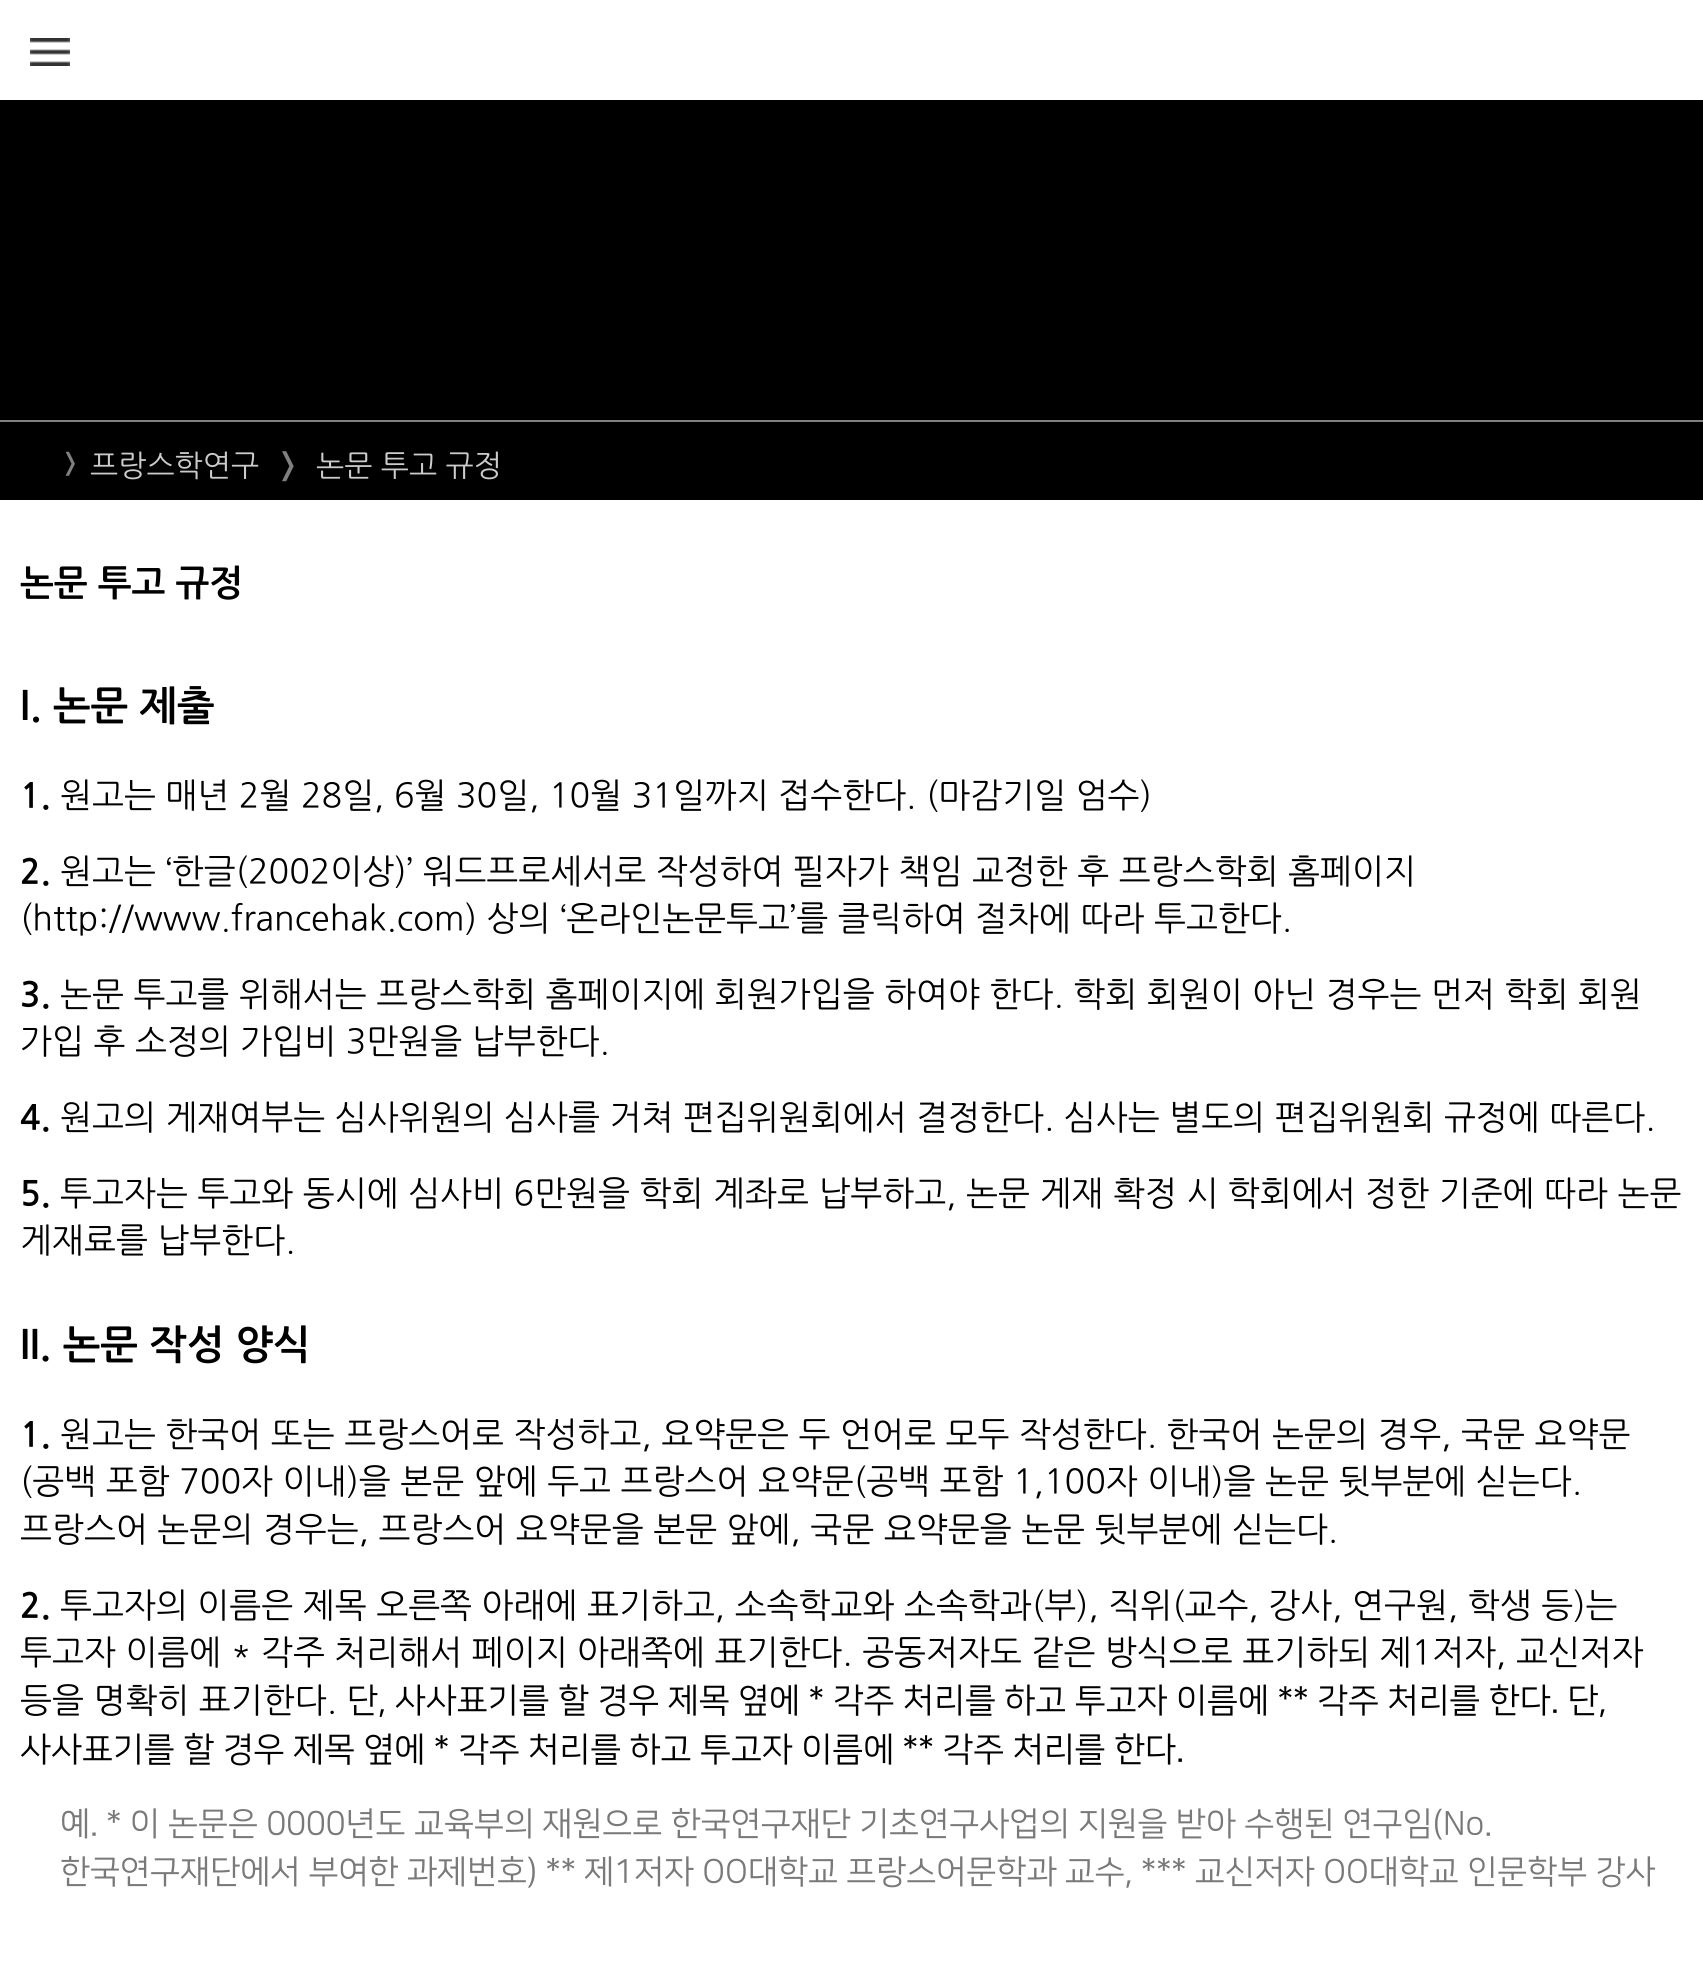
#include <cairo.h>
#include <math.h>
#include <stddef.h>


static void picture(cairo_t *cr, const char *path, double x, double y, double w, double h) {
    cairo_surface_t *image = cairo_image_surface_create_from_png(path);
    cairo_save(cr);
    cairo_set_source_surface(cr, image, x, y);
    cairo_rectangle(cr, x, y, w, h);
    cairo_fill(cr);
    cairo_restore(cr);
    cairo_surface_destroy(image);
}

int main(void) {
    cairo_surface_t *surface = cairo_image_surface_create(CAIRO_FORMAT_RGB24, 1703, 1965);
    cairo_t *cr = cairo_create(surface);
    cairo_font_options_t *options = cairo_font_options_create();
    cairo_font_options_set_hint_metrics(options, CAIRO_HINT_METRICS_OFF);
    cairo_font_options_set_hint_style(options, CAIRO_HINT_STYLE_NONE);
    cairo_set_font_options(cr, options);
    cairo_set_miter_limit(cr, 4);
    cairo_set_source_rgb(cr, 1, 1, 1);
    cairo_paint(cr);
    picture(cr, "img1.png", 30, 38, 40, 28);
    cairo_set_source_rgb(cr, 0, 0, 0);
    cairo_rectangle(cr, 0, 100, 1703, 400);
    cairo_fill(cr);
    cairo_set_source_rgb(cr, 0.502, 0.502, 0.502);
    cairo_rectangle(cr, 0, 420, 1703, 2);
    cairo_fill(cr);
    cairo_select_font_face(cr, "DejaVu Sans", CAIRO_FONT_SLANT_NORMAL, CAIRO_FONT_WEIGHT_NORMAL);
    cairo_set_font_size(cr, 24);
    cairo_move_to(cr, 60, 470);
    cairo_show_text(cr, "❭");
    cairo_select_font_face(cr, "NanumGothic", CAIRO_FONT_SLANT_NORMAL, CAIRO_FONT_WEIGHT_NORMAL);
    cairo_set_font_size(cr, 30);
    cairo_set_source_rgb(cr, 0.8, 0.8, 0.8);
    cairo_move_to(cr, 90, 475);
    cairo_show_text(cr, "프랑스학연구");
    cairo_select_font_face(cr, "DejaVu Sans", CAIRO_FONT_SLANT_NORMAL, CAIRO_FONT_WEIGHT_NORMAL);
    cairo_set_source_rgb(cr, 0.502, 0.502, 0.502);
    cairo_move_to(cr, 275, 474);
    cairo_show_text(cr, "❭");
    cairo_select_font_face(cr, "NanumGothic", CAIRO_FONT_SLANT_NORMAL, CAIRO_FONT_WEIGHT_NORMAL);
    cairo_set_source_rgb(cr, 0.8, 0.8, 0.8);
    cairo_move_to(cr, 316, 475);
    cairo_show_text(cr, "논문 투고 규정");
    cairo_select_font_face(cr, "NanumGothic", CAIRO_FONT_SLANT_NORMAL, CAIRO_FONT_WEIGHT_BOLD);
    cairo_set_font_size(cr, 36);
    cairo_set_source_rgb(cr, 0, 0, 0);
    cairo_move_to(cr, 20, 594);
    cairo_show_text(cr, "논문 투고 규정");
    cairo_set_font_size(cr, 40);
    cairo_move_to(cr, 20, 718);
    cairo_show_text(cr, "I. 논문 제출");
    cairo_set_font_size(cr, 34);
    cairo_move_to(cr, 20, 806);
    cairo_show_text(cr, "1.");
    cairo_select_font_face(cr, "NanumGothic", CAIRO_FONT_SLANT_NORMAL, CAIRO_FONT_WEIGHT_NORMAL);
    cairo_move_to(cr, 60, 806);
    cairo_show_text(cr, "원고는 매년 2월 28일, 6월 30일, 10월 31일까지 접수한다. (마감기일 엄수)");
    cairo_select_font_face(cr, "NanumGothic", CAIRO_FONT_SLANT_NORMAL, CAIRO_FONT_WEIGHT_BOLD);
    cairo_move_to(cr, 20, 882);
    cairo_show_text(cr, "2.");
    cairo_select_font_face(cr, "NanumGothic", CAIRO_FONT_SLANT_NORMAL, CAIRO_FONT_WEIGHT_NORMAL);
    cairo_move_to(cr, 60, 882);
    cairo_show_text(cr, "원고는 ‘한글(2002이상)’ 워드프로세서로 작성하여 필자가 책임 교정한 후 프랑스학회 홈페이지");
    cairo_move_to(cr, 20, 929);
    cairo_show_text(cr, "(http://www.francehak.com) 상의 ‘온라인논문투고’를 클릭하여 절차에 따라 투고한다.");
    cairo_select_font_face(cr, "NanumGothic", CAIRO_FONT_SLANT_NORMAL, CAIRO_FONT_WEIGHT_BOLD);
    cairo_move_to(cr, 20, 1005);
    cairo_show_text(cr, "3.");
    cairo_select_font_face(cr, "NanumGothic", CAIRO_FONT_SLANT_NORMAL, CAIRO_FONT_WEIGHT_NORMAL);
    cairo_move_to(cr, 60, 1005);
    cairo_show_text(cr, "논문 투고를 위해서는 프랑스학회 홈페이지에 회원가입을 하여야 한다. 학회 회원이 아닌 경우는 먼저 학회 회원");
    cairo_move_to(cr, 20, 1052);
    cairo_show_text(cr, "가입 후 소정의 가입비 3만원을 납부한다.");
    cairo_select_font_face(cr, "NanumGothic", CAIRO_FONT_SLANT_NORMAL, CAIRO_FONT_WEIGHT_BOLD);
    cairo_move_to(cr, 20, 1128);
    cairo_show_text(cr, "4.");
    cairo_select_font_face(cr, "NanumGothic", CAIRO_FONT_SLANT_NORMAL, CAIRO_FONT_WEIGHT_NORMAL);
    cairo_move_to(cr, 60, 1128);
    cairo_show_text(cr, "원고의 게재여부는 심사위원의 심사를 거쳐 편집위원회에서 결정한다. 심사는 별도의 편집위원회 규정에 따른다.");
    cairo_select_font_face(cr, "NanumGothic", CAIRO_FONT_SLANT_NORMAL, CAIRO_FONT_WEIGHT_BOLD);
    cairo_move_to(cr, 20, 1204);
    cairo_show_text(cr, "5.");
    cairo_select_font_face(cr, "NanumGothic", CAIRO_FONT_SLANT_NORMAL, CAIRO_FONT_WEIGHT_NORMAL);
    cairo_move_to(cr, 60, 1204);
    cairo_show_text(cr, "투고자는 투고와 동시에 심사비 6만원을 학회 계좌로 납부하고, 논문 게재 확정 시 학회에서 정한 기준에 따라 논문");
    cairo_move_to(cr, 20, 1251);
    cairo_show_text(cr, "게재료를 납부한다.");
    cairo_select_font_face(cr, "NanumGothic", CAIRO_FONT_SLANT_NORMAL, CAIRO_FONT_WEIGHT_BOLD);
    cairo_set_font_size(cr, 40);
    cairo_move_to(cr, 20, 1357);
    cairo_show_text(cr, "II. 논문 작성 양식");
    cairo_set_font_size(cr, 34);
    cairo_move_to(cr, 20, 1445);
    cairo_show_text(cr, "1.");
    cairo_select_font_face(cr, "NanumGothic", CAIRO_FONT_SLANT_NORMAL, CAIRO_FONT_WEIGHT_NORMAL);
    cairo_move_to(cr, 60, 1445);
    cairo_show_text(cr, "원고는 한국어 또는 프랑스어로 작성하고, 요약문은 두 언어로 모두 작성한다. 한국어 논문의 경우, 국문 요약문");
    cairo_move_to(cr, 20, 1492);
    cairo_show_text(cr, "(공백 포함 700자 이내)을 본문 앞에 두고 프랑스어 요약문(공백 포함 1,100자 이내)을 논문 뒷부분에 싣는다.");
    cairo_move_to(cr, 20, 1540);
    cairo_show_text(cr, "프랑스어 논문의 경우는, 프랑스어 요약문을 본문 앞에, 국문 요약문을 논문 뒷부분에 싣는다.");
    cairo_select_font_face(cr, "NanumGothic", CAIRO_FONT_SLANT_NORMAL, CAIRO_FONT_WEIGHT_BOLD);
    cairo_move_to(cr, 20, 1616);
    cairo_show_text(cr, "2.");
    cairo_select_font_face(cr, "NanumGothic", CAIRO_FONT_SLANT_NORMAL, CAIRO_FONT_WEIGHT_NORMAL);
    cairo_move_to(cr, 60, 1616);
    cairo_show_text(cr, "투고자의 이름은 제목 오른쪽 아래에 표기하고, 소속학교와 소속학과(부), 직위(교수, 강사, 연구원, 학생 등)는");
    cairo_move_to(cr, 20, 1663);
    cairo_show_text(cr, "투고자 이름에 * 각주 처리해서 페이지 아래쪽에 표기한다. 공동저자도 같은 방식으로 표기하되 제1저자, 교신저자");
    cairo_move_to(cr, 20, 1711);
    cairo_show_text(cr, "등을 명확히 표기한다.");
    cairo_select_font_face(cr, "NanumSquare", CAIRO_FONT_SLANT_NORMAL, CAIRO_FONT_WEIGHT_NORMAL);
    cairo_move_to(cr, 347, 1711);
    cairo_show_text(cr, "단, 사사표기를 할 경우 제목 옆에 * 각주 처리를 하고 투고자 이름에 ** 각주 처리를 한다. 단,");
    cairo_move_to(cr, 20, 1760);
    cairo_show_text(cr, "사사표기를 할 경우 제목 옆에 * 각주 처리를 하고 투고자 이름에 ** 각주 처리를 한다.");
    cairo_set_font_size(cr, 33);
    cairo_set_source_rgb(cr, 0.475, 0.475, 0.475);
    cairo_move_to(cr, 60, 1834);
    cairo_show_text(cr, "예. * 이 논문은 0000년도 교육부의 재원으로 한국연구재단 기초연구사업의 지원을 받아 수행된 연구임(No.");
    cairo_move_to(cr, 60, 1882);
    cairo_show_text(cr, "한국연구재단에서 부여한 과제번호) ** 제1저자 OO대학교 프랑스어문학과 교수, *** 교신저자 OO대학교 인문학부 강사");
    cairo_surface_write_to_png(surface, "page.png");
    cairo_font_options_destroy(options);
    cairo_destroy(cr);
    cairo_surface_destroy(surface);
    return 0;
}
